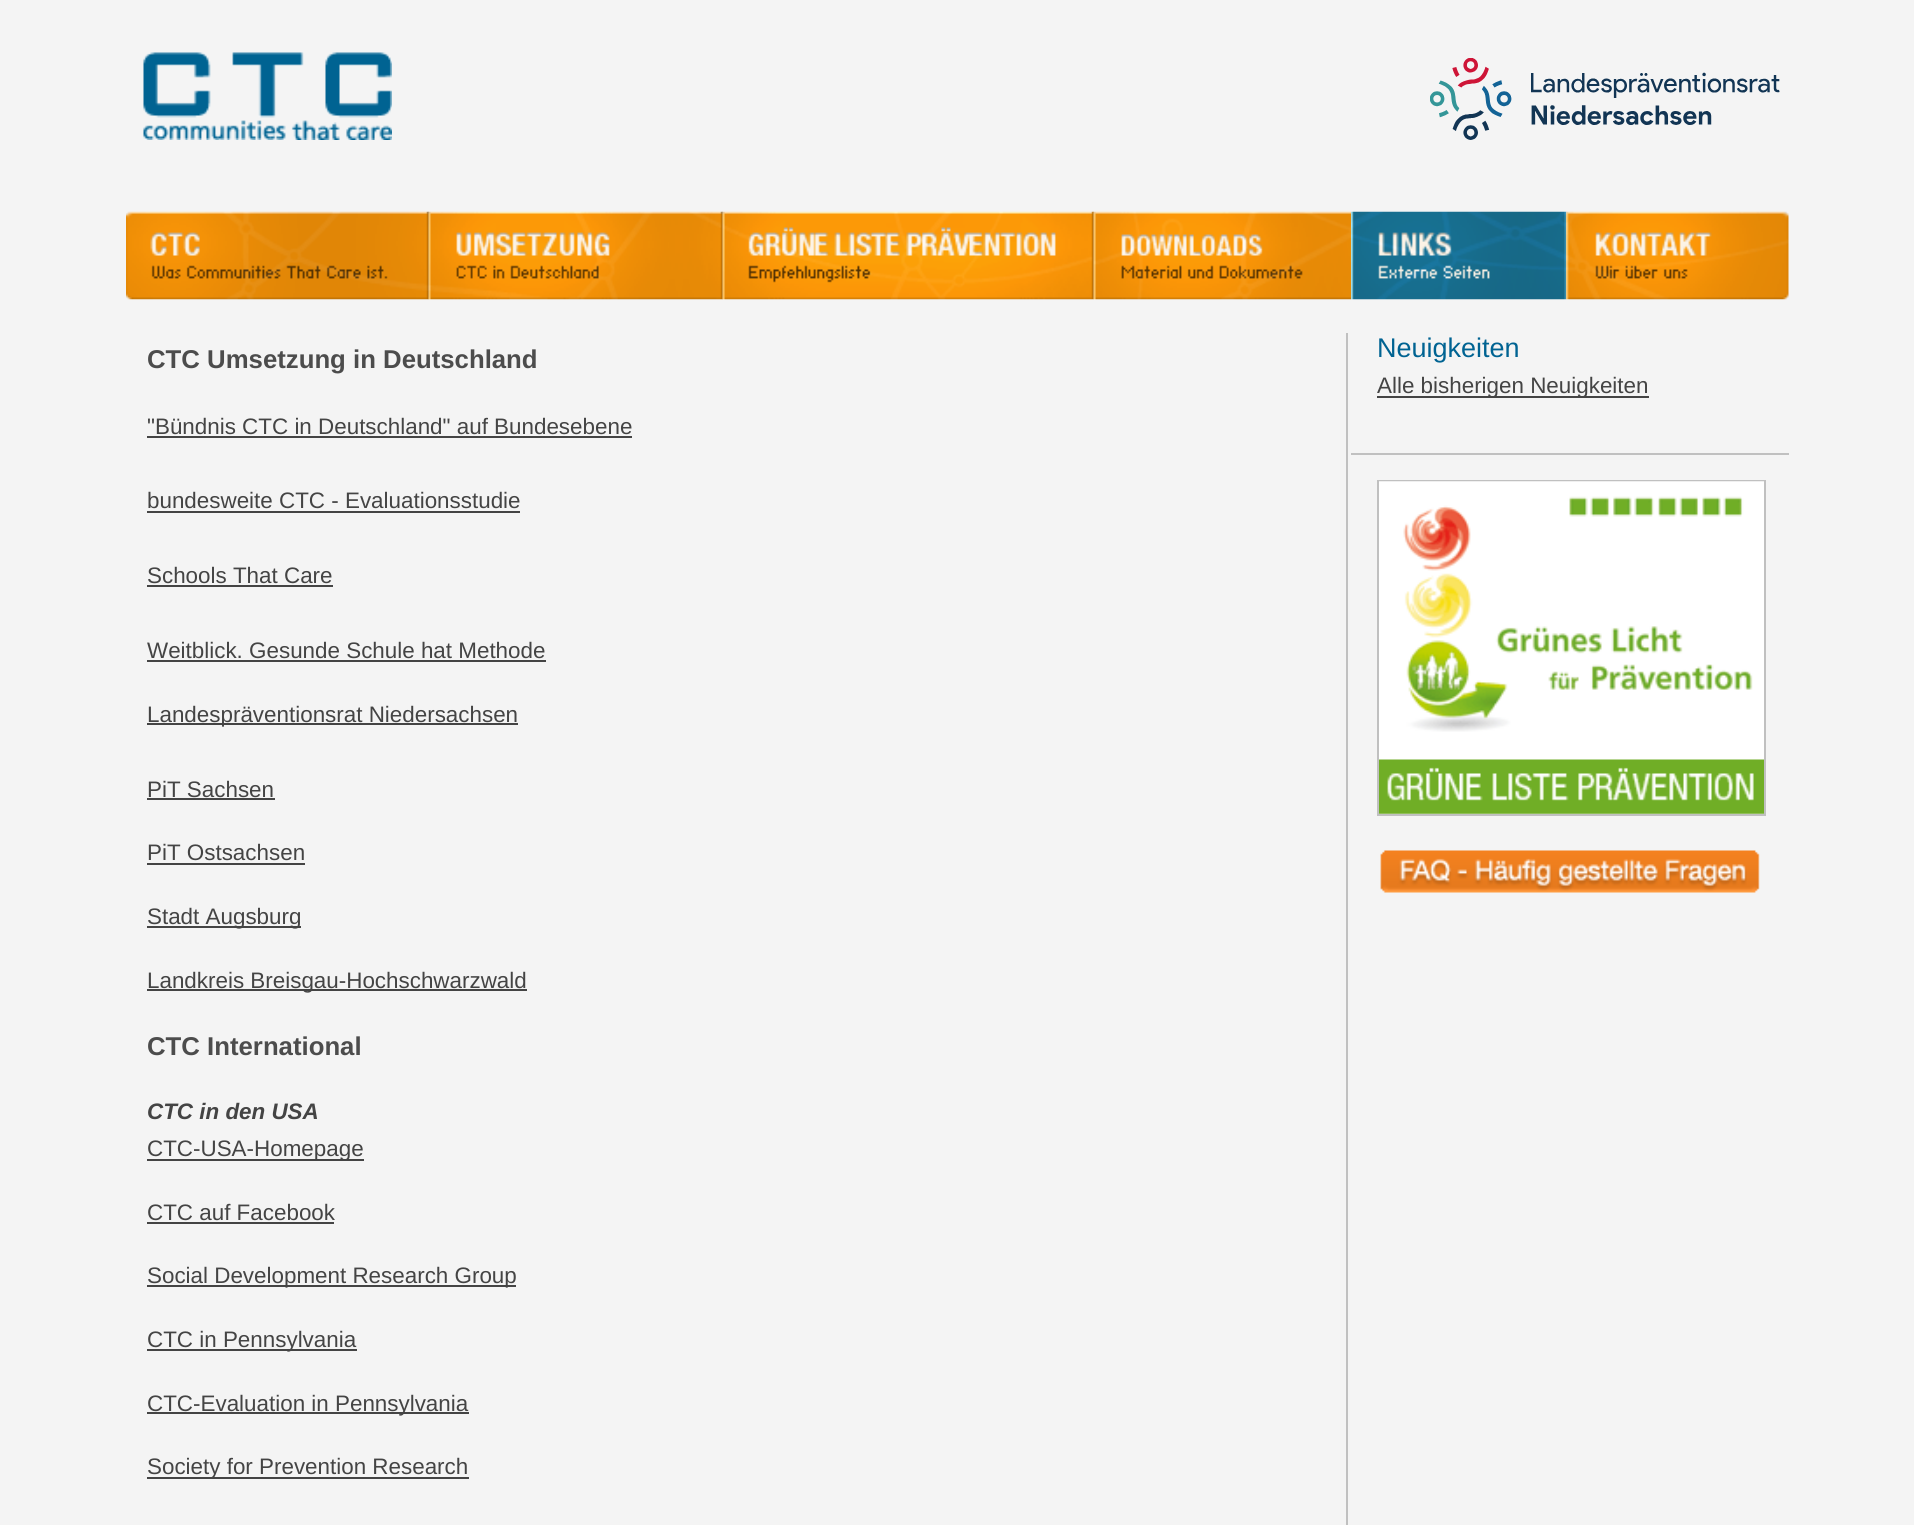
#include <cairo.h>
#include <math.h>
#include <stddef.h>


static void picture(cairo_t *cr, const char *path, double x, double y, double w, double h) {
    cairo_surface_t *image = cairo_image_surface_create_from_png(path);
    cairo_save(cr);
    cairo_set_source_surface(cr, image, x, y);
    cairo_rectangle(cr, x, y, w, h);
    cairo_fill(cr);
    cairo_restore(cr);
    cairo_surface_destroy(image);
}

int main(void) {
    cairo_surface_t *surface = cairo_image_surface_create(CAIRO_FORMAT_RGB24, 1914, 1525);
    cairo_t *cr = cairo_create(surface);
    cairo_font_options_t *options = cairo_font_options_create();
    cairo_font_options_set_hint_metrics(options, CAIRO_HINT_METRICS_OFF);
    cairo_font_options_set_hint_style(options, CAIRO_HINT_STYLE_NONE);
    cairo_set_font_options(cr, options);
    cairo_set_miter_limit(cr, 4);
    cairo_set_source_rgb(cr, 0.957, 0.957, 0.957);
    cairo_paint(cr);
    picture(cr, "img1.png", 143, 52, 249, 88);
    picture(cr, "img2.png", 1430, 58, 350, 82);
    picture(cr, "img3.png", 126, 211, 303, 89);
    picture(cr, "img4.png", 428, 211, 295, 89);
    picture(cr, "img5.png", 722, 211, 372, 89);
    picture(cr, "img6.png", 1093, 211, 258, 89);
    picture(cr, "img7.png", 1351, 211, 216, 89);
    picture(cr, "img8.png", 1566, 211, 223, 89);
    cairo_set_source_rgb(cr, 0.753, 0.753, 0.753);
    cairo_rectangle(cr, 1346, 333, 2, 1192);
    cairo_fill(cr);
    cairo_select_font_face(cr, "Liberation Sans", CAIRO_FONT_SLANT_NORMAL, CAIRO_FONT_WEIGHT_BOLD);
    cairo_set_font_size(cr, 25.75);
    cairo_set_source_rgb(cr, 0.298, 0.298, 0.298);
    cairo_move_to(cr, 147, 368);
    cairo_show_text(cr, "CTC Umsetzung in Deutschland");
    cairo_select_font_face(cr, "Liberation Sans", CAIRO_FONT_SLANT_NORMAL, CAIRO_FONT_WEIGHT_NORMAL);
    cairo_set_font_size(cr, 22.4);
    cairo_set_source_rgb(cr, 0.267, 0.267, 0.267);
    cairo_move_to(cr, 147, 434);
    cairo_show_text(cr, "\"Bündnis CTC in Deutschland\" auf Bundesebene");
    cairo_rectangle(cr, 147, 436, 485, 2);
    cairo_fill(cr);
    cairo_move_to(cr, 147, 508);
    cairo_show_text(cr, "bundesweite CTC - Evaluationsstudie");
    cairo_rectangle(cr, 147, 511, 373, 2);
    cairo_fill(cr);
    cairo_move_to(cr, 147, 583);
    cairo_show_text(cr, "Schools That Care");
    cairo_rectangle(cr, 147, 585, 186, 2);
    cairo_fill(cr);
    cairo_move_to(cr, 147, 658);
    cairo_show_text(cr, "Weitblick. Gesunde Schule hat Methode");
    cairo_rectangle(cr, 147, 660, 399, 2);
    cairo_fill(cr);
    cairo_rectangle(cr, 147, 723, 371, 2);
    cairo_fill(cr);
    cairo_move_to(cr, 147, 722);
    cairo_show_text(cr, "Landespräventionsrat Niedersachsen");
    cairo_move_to(cr, 147, 797);
    cairo_show_text(cr, "PiT Sachsen");
    cairo_rectangle(cr, 147, 798, 128, 2);
    cairo_fill(cr);
    cairo_move_to(cr, 147, 860);
    cairo_show_text(cr, "PiT Ostsachsen");
    cairo_rectangle(cr, 147, 863, 158, 2);
    cairo_fill(cr);
    cairo_rectangle(cr, 147, 926, 154, 2);
    cairo_fill(cr);
    cairo_move_to(cr, 147, 924);
    cairo_show_text(cr, "Stadt Augsburg");
    cairo_rectangle(cr, 147, 989, 380, 2);
    cairo_fill(cr);
    cairo_move_to(cr, 147, 988);
    cairo_show_text(cr, "Landkreis Breisgau-Hochschwarzwald");
    cairo_select_font_face(cr, "Liberation Sans", CAIRO_FONT_SLANT_NORMAL, CAIRO_FONT_WEIGHT_BOLD);
    cairo_set_font_size(cr, 25.75);
    cairo_set_source_rgb(cr, 0.298, 0.298, 0.298);
    cairo_move_to(cr, 147, 1055);
    cairo_show_text(cr, "CTC International");
    cairo_select_font_face(cr, "Liberation Sans", CAIRO_FONT_SLANT_ITALIC, CAIRO_FONT_WEIGHT_BOLD);
    cairo_set_font_size(cr, 22.4);
    cairo_set_source_rgb(cr, 0.267, 0.267, 0.267);
    cairo_move_to(cr, 147, 1119);
    cairo_show_text(cr, "CTC in den USA");
    cairo_rectangle(cr, 147, 1159, 217, 2);
    cairo_fill(cr);
    cairo_select_font_face(cr, "Liberation Sans", CAIRO_FONT_SLANT_NORMAL, CAIRO_FONT_WEIGHT_NORMAL);
    cairo_move_to(cr, 147, 1156);
    cairo_show_text(cr, "CTC-USA-Homepage");
    cairo_move_to(cr, 147, 1220);
    cairo_show_text(cr, "CTC auf Facebook");
    cairo_rectangle(cr, 147, 1222, 187, 2);
    cairo_fill(cr);
    cairo_rectangle(cr, 147, 1285, 369, 2);
    cairo_fill(cr);
    cairo_move_to(cr, 147, 1283);
    cairo_show_text(cr, "Social Development Research Group");
    cairo_rectangle(cr, 147, 1349, 210, 2);
    cairo_fill(cr);
    cairo_move_to(cr, 147, 1347);
    cairo_show_text(cr, "CTC in Pennsylvania");
    cairo_rectangle(cr, 147, 1412, 322, 2);
    cairo_fill(cr);
    cairo_move_to(cr, 147, 1411);
    cairo_show_text(cr, "CTC-Evaluation in Pennsylvania");
    cairo_rectangle(cr, 147, 1477, 322, 2);
    cairo_fill(cr);
    cairo_move_to(cr, 147, 1474);
    cairo_show_text(cr, "Society for Prevention Research");
    cairo_set_font_size(cr, 27);
    cairo_set_source_rgb(cr, 0, 0.388, 0.573);
    cairo_move_to(cr, 1377, 357);
    cairo_show_text(cr, "Neuigkeiten");
    cairo_set_source_rgb(cr, 0.267, 0.267, 0.267);
    cairo_rectangle(cr, 1377, 396, 272, 2);
    cairo_fill(cr);
    cairo_set_font_size(cr, 22.4);
    cairo_move_to(cr, 1377, 393);
    cairo_show_text(cr, "Alle bisherigen Neuigkeiten");
    cairo_set_source_rgb(cr, 0.753, 0.753, 0.753);
    cairo_rectangle(cr, 1351, 453, 438, 2);
    cairo_fill(cr);
    cairo_rectangle(cr, 1378, 481, 387, 334);
    cairo_stroke(cr);
    picture(cr, "img9.png", 1379, 481, 385, 333);
    picture(cr, "img10.png", 1380, 850, 380, 43);
    cairo_surface_write_to_png(surface, "page.png");
    cairo_font_options_destroy(options);
    cairo_destroy(cr);
    cairo_surface_destroy(surface);
    return 0;
}
